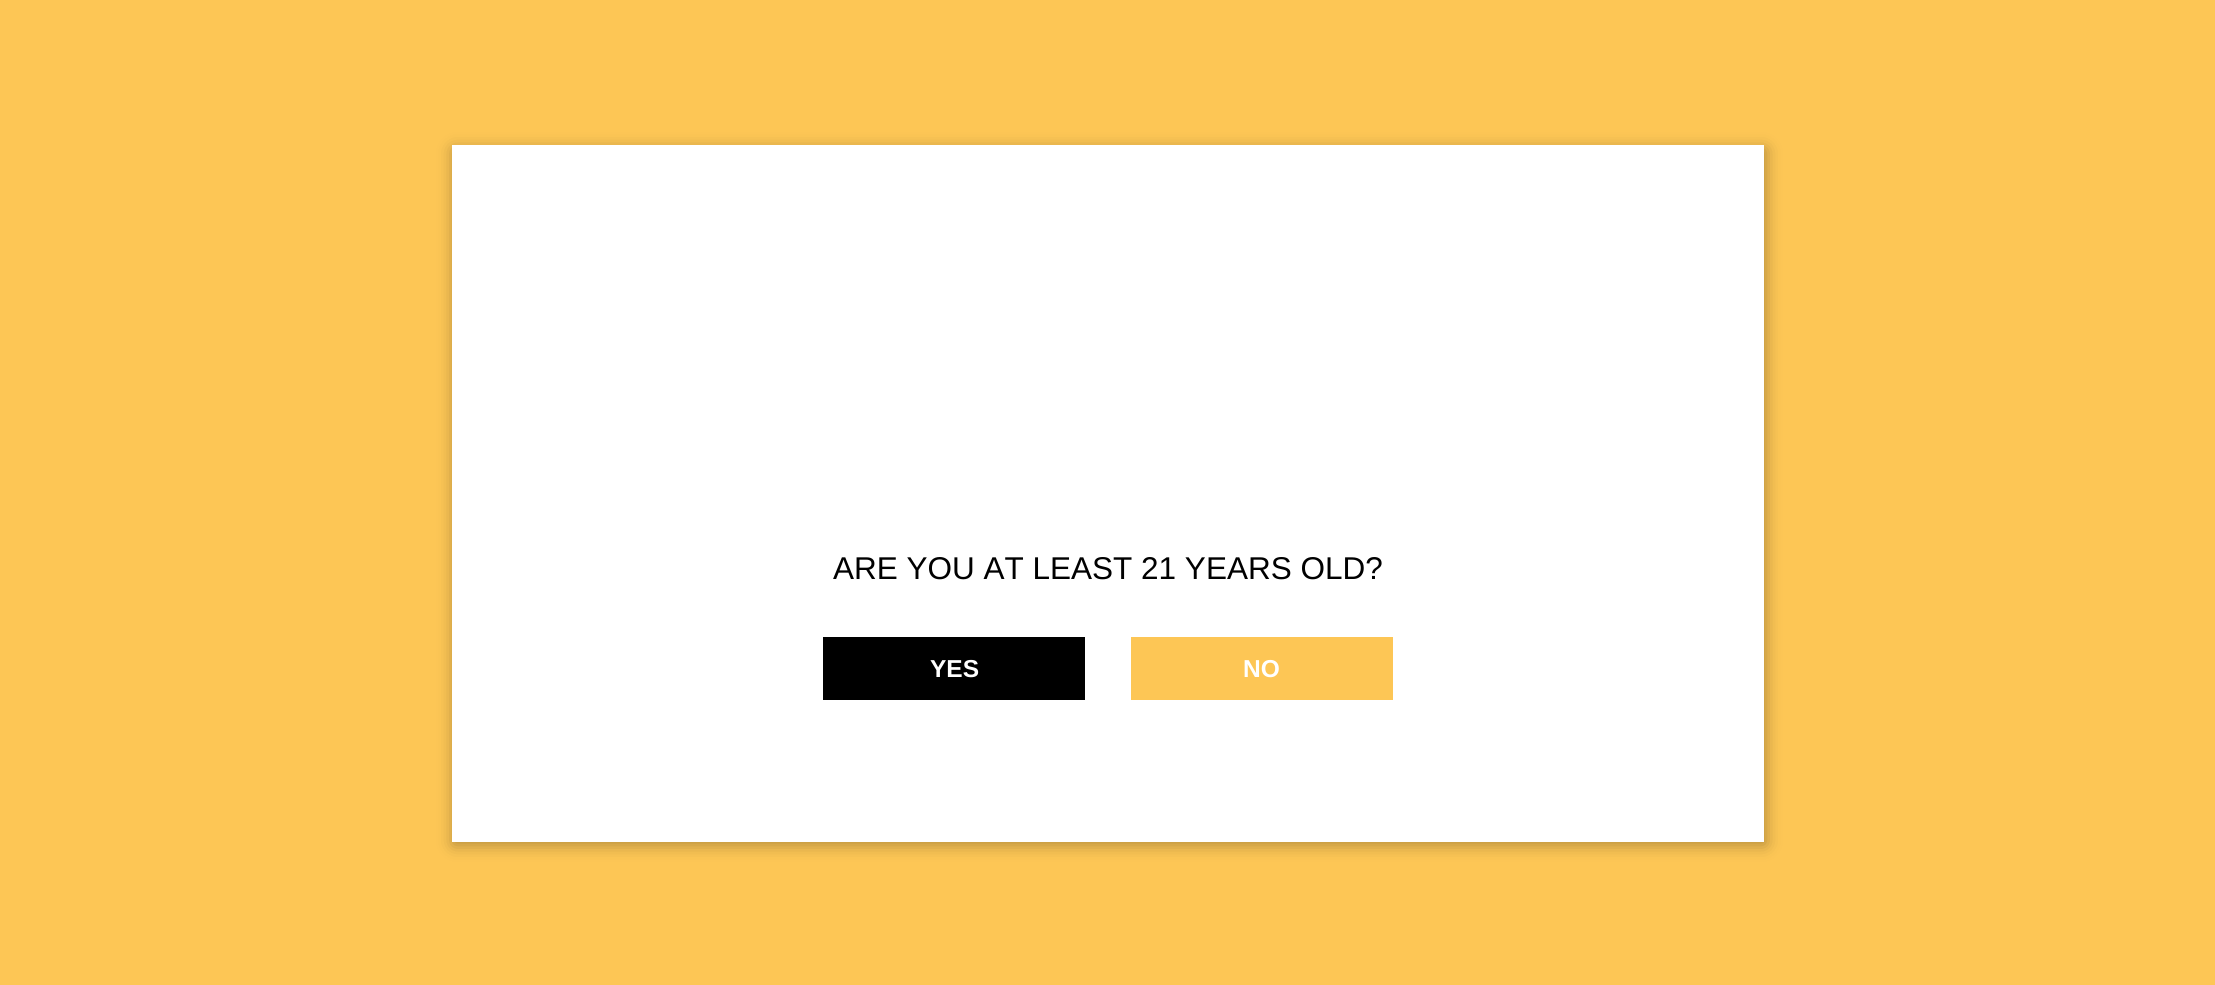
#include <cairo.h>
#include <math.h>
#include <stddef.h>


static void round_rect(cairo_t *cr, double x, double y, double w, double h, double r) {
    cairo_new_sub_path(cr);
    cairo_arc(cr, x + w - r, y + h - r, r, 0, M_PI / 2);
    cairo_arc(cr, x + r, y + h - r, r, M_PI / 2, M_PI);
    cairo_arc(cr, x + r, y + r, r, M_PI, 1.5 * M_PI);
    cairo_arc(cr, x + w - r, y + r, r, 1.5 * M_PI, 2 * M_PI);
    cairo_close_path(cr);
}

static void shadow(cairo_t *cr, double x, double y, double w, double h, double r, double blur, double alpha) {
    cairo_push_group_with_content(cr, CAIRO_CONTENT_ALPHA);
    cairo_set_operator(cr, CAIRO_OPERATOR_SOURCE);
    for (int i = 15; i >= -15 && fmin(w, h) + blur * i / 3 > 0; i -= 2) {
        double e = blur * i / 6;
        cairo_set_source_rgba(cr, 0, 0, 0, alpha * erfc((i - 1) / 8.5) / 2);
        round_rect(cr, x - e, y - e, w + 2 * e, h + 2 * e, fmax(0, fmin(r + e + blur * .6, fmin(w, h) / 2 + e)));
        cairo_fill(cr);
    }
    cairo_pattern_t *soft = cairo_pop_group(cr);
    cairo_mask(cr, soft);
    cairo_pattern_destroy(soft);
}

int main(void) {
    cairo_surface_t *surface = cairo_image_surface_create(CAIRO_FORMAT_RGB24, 2215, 985);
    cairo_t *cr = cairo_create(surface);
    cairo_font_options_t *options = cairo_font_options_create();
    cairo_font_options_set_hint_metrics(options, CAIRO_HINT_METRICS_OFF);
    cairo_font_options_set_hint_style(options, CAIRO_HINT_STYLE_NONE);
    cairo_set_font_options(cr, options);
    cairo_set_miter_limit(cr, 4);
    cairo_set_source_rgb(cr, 0.992, 0.776, 0.333);
    cairo_paint(cr);
    cairo_set_source_rgb(cr, 0, 0, 0);
    shadow(cr, 453, 149, 1313, 696, 0, 8, 0.3);
    cairo_set_source_rgb(cr, 1, 1, 1);
    cairo_rectangle(cr, 452, 145, 1312, 697);
    cairo_fill(cr);
    cairo_select_font_face(cr, "Liberation Sans", CAIRO_FONT_SLANT_NORMAL, CAIRO_FONT_WEIGHT_NORMAL);
    cairo_set_font_size(cr, 31.5);
    cairo_set_source_rgb(cr, 0, 0, 0);
    cairo_move_to(cr, 833, 579);
    cairo_show_text(cr, "ARE YOU AT LEAST 21 YEARS OLD?");
    cairo_rectangle(cr, 823, 637, 262, 63);
    cairo_fill(cr);
    cairo_select_font_face(cr, "Liberation Sans", CAIRO_FONT_SLANT_NORMAL, CAIRO_FONT_WEIGHT_BOLD);
    cairo_set_font_size(cr, 24.5);
    cairo_set_source_rgb(cr, 1, 1, 1);
    cairo_move_to(cr, 930, 677);
    cairo_show_text(cr, "YES");
    cairo_set_source_rgb(cr, 0.992, 0.776, 0.333);
    cairo_rectangle(cr, 1131, 637, 262, 63);
    cairo_fill(cr);
    cairo_set_source_rgb(cr, 1, 1, 1);
    cairo_move_to(cr, 1243, 677);
    cairo_show_text(cr, "NO");
    cairo_surface_write_to_png(surface, "page.png");
    cairo_font_options_destroy(options);
    cairo_destroy(cr);
    cairo_surface_destroy(surface);
    return 0;
}
